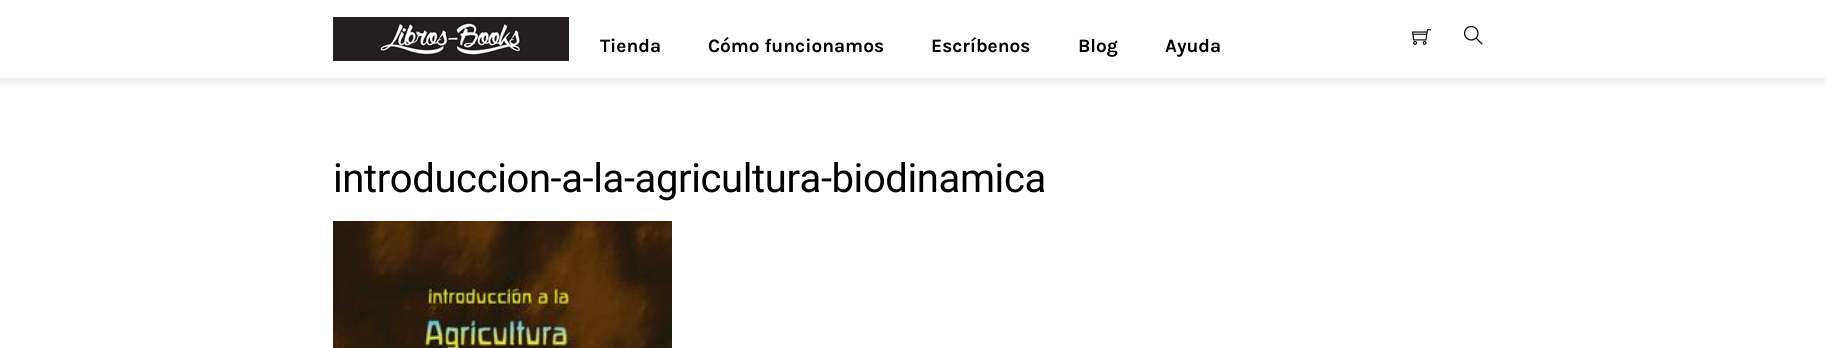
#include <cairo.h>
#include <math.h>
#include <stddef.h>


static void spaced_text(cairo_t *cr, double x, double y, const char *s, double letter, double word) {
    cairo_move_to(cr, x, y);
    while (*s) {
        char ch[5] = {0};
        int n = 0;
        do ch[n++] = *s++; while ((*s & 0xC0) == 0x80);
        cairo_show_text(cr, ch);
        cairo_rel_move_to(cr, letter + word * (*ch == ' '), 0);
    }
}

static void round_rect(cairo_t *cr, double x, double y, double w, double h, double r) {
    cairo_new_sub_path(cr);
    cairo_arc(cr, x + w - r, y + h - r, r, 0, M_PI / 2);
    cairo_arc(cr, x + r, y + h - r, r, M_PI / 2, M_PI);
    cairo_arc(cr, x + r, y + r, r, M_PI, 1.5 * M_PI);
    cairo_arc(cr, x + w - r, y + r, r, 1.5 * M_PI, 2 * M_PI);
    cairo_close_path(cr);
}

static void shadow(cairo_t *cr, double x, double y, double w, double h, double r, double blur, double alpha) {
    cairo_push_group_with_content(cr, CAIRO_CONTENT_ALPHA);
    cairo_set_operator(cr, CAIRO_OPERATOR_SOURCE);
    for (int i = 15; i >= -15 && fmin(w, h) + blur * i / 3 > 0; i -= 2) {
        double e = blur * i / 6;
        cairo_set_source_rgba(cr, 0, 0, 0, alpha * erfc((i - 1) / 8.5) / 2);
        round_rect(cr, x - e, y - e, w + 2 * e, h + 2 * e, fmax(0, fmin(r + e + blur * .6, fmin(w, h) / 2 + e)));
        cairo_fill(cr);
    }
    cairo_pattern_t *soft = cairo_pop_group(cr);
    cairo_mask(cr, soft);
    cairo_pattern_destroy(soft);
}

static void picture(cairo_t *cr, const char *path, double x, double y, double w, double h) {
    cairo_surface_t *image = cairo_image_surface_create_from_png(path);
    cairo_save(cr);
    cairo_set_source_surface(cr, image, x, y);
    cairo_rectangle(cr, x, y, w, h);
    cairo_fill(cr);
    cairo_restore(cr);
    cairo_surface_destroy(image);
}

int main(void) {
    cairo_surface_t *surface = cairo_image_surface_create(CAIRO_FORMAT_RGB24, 1826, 348);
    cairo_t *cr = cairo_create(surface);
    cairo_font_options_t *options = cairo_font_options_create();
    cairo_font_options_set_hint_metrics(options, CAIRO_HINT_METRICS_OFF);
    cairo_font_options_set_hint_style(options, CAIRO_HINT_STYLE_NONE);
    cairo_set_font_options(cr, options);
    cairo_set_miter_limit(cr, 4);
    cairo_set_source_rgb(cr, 1, 1, 1);
    cairo_paint(cr);
    cairo_save(cr);
    cairo_rectangle(cr, 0, 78, 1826, 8);
    cairo_clip(cr);
    cairo_set_source_rgb(cr, 0, 0, 0);
    shadow(cr, 0, 1, 1826, 78, 0, 7.5, 0.12);
    cairo_restore(cr);
    picture(cr, "img1.png", 333, 17, 236, 44);
    cairo_select_font_face(cr, "Karla", CAIRO_FONT_SLANT_NORMAL, CAIRO_FONT_WEIGHT_BOLD);
    cairo_set_font_size(cr, 19);
    cairo_set_source_rgb(cr, 0, 0, 0);
    cairo_move_to(cr, 600, 52);
    cairo_show_text(cr, "Tienda");
    cairo_move_to(cr, 708, 52);
    cairo_show_text(cr, "Cómo funcionamos");
    cairo_move_to(cr, 931, 52);
    cairo_show_text(cr, "Escríbenos");
    cairo_move_to(cr, 1078, 52);
    cairo_show_text(cr, "Blog");
    cairo_move_to(cr, 1165, 52);
    cairo_show_text(cr, "Ayuda");
    picture(cr, "img2.png", 1412, 29, 19, 16);
    picture(cr, "img3.png", 1464, 26, 19, 19);
    cairo_select_font_face(cr, "Roboto", CAIRO_FONT_SLANT_NORMAL, CAIRO_FONT_WEIGHT_NORMAL);
    cairo_set_font_size(cr, 40);
    spaced_text(cr, 333, 192, "introduccion-a-la-agricultura-biodinamica", -0.4, 0);
    picture(cr, "img4.png", 333, 221, 339, 127);
    cairo_surface_write_to_png(surface, "page.png");
    cairo_font_options_destroy(options);
    cairo_destroy(cr);
    cairo_surface_destroy(surface);
    return 0;
}
